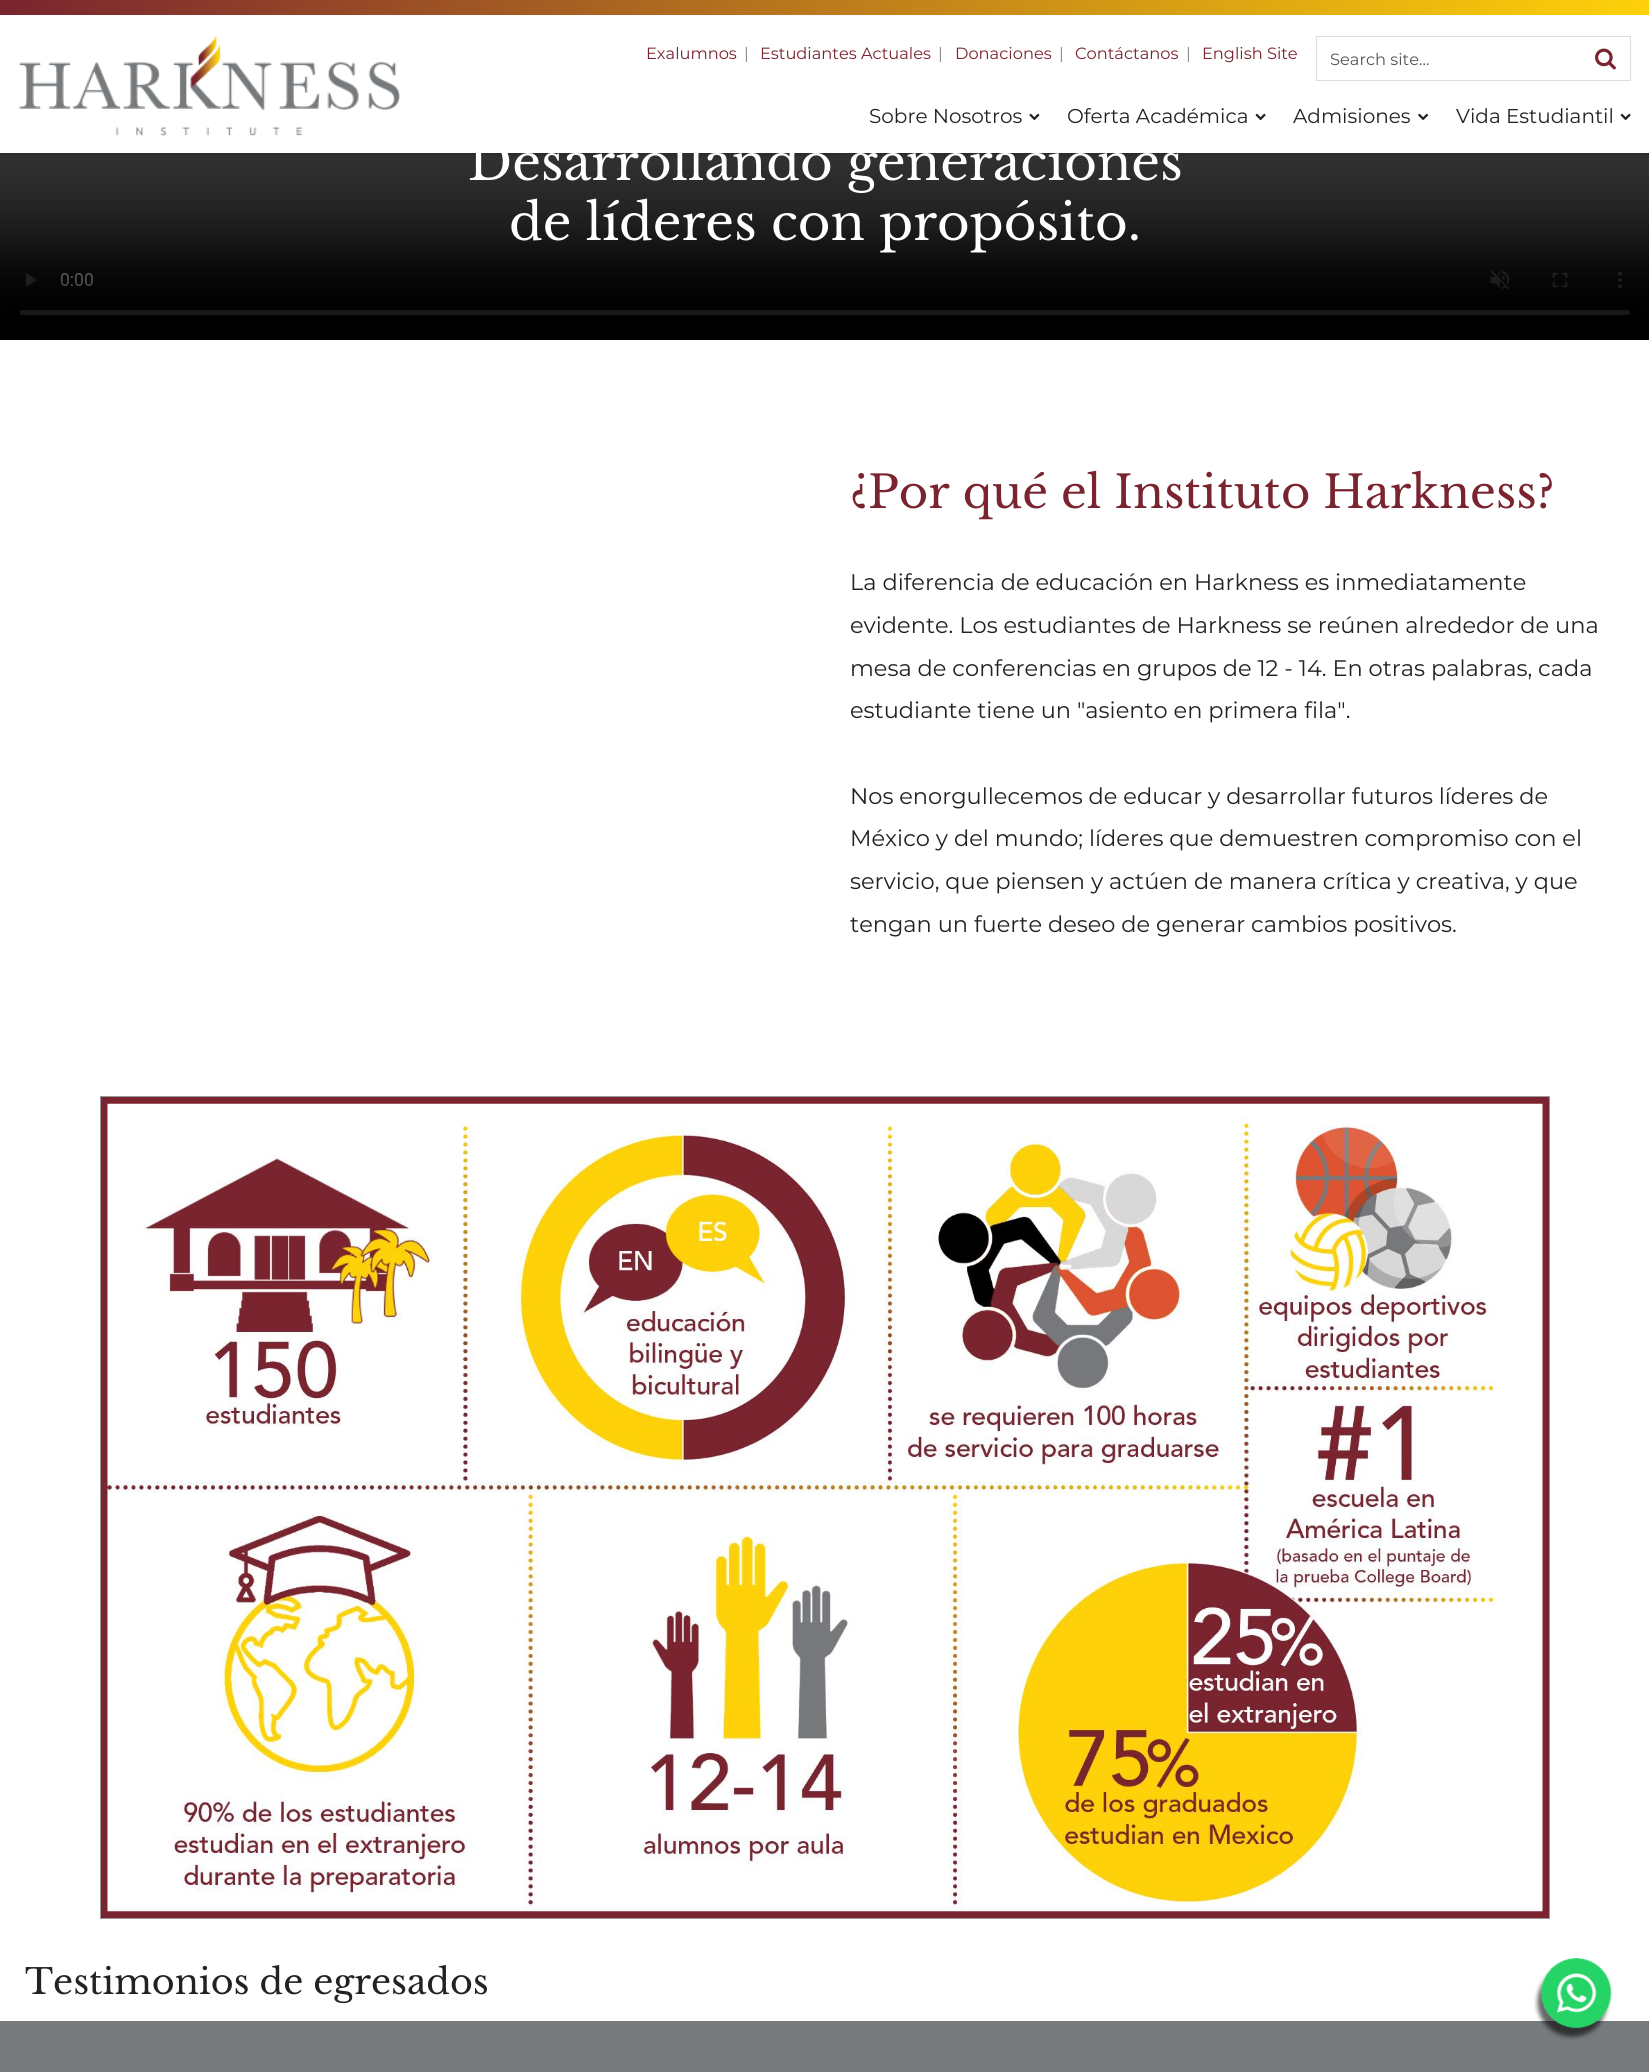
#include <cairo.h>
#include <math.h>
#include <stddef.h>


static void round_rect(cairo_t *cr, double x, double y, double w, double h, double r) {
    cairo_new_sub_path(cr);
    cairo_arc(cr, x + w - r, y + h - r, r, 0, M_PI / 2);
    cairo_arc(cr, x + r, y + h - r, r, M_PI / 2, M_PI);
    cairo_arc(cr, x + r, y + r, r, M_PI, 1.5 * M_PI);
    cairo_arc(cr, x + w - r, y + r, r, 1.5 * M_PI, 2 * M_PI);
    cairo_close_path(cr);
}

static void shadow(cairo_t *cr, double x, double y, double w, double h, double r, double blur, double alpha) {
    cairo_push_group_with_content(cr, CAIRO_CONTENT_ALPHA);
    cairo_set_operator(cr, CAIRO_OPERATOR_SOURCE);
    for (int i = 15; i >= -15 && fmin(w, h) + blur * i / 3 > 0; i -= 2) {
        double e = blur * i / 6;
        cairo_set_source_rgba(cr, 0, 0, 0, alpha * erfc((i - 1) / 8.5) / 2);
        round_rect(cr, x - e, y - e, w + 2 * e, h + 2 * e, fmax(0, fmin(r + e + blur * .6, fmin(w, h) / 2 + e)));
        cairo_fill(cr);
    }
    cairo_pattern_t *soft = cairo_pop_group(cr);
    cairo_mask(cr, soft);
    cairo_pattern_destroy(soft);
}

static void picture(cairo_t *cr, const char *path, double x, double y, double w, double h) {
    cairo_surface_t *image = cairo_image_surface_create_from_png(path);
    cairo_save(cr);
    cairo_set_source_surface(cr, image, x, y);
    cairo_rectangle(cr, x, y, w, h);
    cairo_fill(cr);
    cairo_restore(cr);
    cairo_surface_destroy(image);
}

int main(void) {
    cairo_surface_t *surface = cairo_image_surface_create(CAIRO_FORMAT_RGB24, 1649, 2072);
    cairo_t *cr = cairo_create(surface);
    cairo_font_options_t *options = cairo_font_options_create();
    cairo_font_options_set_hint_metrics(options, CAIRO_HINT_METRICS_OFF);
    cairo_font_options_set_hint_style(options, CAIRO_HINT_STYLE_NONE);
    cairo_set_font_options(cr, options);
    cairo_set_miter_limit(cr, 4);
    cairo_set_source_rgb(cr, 1, 1, 1);
    cairo_paint(cr);
    picture(cr, "img7.png", 0, 153, 1649, 187);
    cairo_set_source_rgb(cr, 0, 0, 0);
    shadow(cr, 0, 3, 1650, 152, 0, 2, 0.2);
    cairo_set_source_rgb(cr, 1, 1, 1);
    cairo_rectangle(cr, 0, 15, 1649, 138);
    cairo_fill(cr);
    picture(cr, "img1.png", 0, 0, 1649, 15);
    picture(cr, "img2.png", 18, 35, 382, 102);
    cairo_select_font_face(cr, "Montserrat", CAIRO_FONT_SLANT_NORMAL, CAIRO_FONT_WEIGHT_NORMAL);
    cairo_set_font_size(cr, 16.25);
    cairo_set_source_rgb(cr, 0.475, 0.141, 0.184);
    cairo_move_to(cr, 646, 59);
    cairo_show_text(cr, "Exalumnos");
    cairo_set_source_rgb(cr, 0.533, 0.533, 0.533);
    cairo_move_to(cr, 744, 59);
    cairo_show_text(cr, "|");
    cairo_set_source_rgb(cr, 0.475, 0.141, 0.184);
    cairo_move_to(cr, 760, 59);
    cairo_show_text(cr, "Estudiantes Actuales");
    cairo_set_source_rgb(cr, 0.533, 0.533, 0.533);
    cairo_move_to(cr, 938, 59);
    cairo_show_text(cr, "|");
    cairo_set_source_rgb(cr, 0.475, 0.141, 0.184);
    cairo_move_to(cr, 955, 59);
    cairo_show_text(cr, "Donaciones");
    cairo_set_source_rgb(cr, 0.533, 0.533, 0.533);
    cairo_move_to(cr, 1059, 59);
    cairo_show_text(cr, "|");
    cairo_set_source_rgb(cr, 0.475, 0.141, 0.184);
    cairo_move_to(cr, 1075, 59);
    cairo_show_text(cr, "Contáctanos");
    cairo_set_source_rgb(cr, 0.533, 0.533, 0.533);
    cairo_move_to(cr, 1186, 59);
    cairo_show_text(cr, "|");
    cairo_set_source_rgb(cr, 0.475, 0.141, 0.184);
    cairo_move_to(cr, 1202, 59);
    cairo_show_text(cr, "English Site");
    cairo_rectangle(cr, 1316.5, 36.5, 314, 44);
    cairo_set_source_rgb(cr, 0.867, 0.867, 0.867);
    cairo_set_line_width(cr, 1);
    cairo_stroke(cr);
    cairo_set_source_rgb(cr, 0.333, 0.333, 0.333);
    cairo_move_to(cr, 1330, 65);
    cairo_show_text(cr, "Search site...");
    picture(cr, "img3.png", 1595, 48, 21, 22);
    cairo_set_font_size(cr, 20);
    cairo_set_source_rgb(cr, 0.133, 0.133, 0.133);
    cairo_move_to(cr, 869, 123);
    cairo_show_text(cr, "Sobre Nosotros");
    picture(cr, "img4.png", 1029, 113, 11, 8);
    cairo_move_to(cr, 1067, 123);
    cairo_show_text(cr, "Oferta Académica");
    picture(cr, "img5.png", 1255, 113, 11, 8);
    cairo_move_to(cr, 1293, 123);
    cairo_show_text(cr, "Admisiones");
    picture(cr, "img6.png", 1418, 113, 11, 8);
    cairo_move_to(cr, 1456, 123);
    cairo_show_text(cr, "Vida Estudiantil");
    picture(cr, "img5.png", 1620, 113, 11, 8);
    cairo_select_font_face(cr, "Libre Baskerville", CAIRO_FONT_SLANT_NORMAL, CAIRO_FONT_WEIGHT_NORMAL);
    cairo_set_font_size(cr, 50);
    cairo_set_source_rgb(cr, 1, 1, 1);
    cairo_move_to(cr, 468, 180);
    cairo_show_text(cr, "Desarrollando generaciones");
    cairo_move_to(cr, 509, 240);
    cairo_show_text(cr, "de líderes con propósito.");
    cairo_set_font_size(cr, 45);
    cairo_set_source_rgb(cr, 0.475, 0.141, 0.184);
    cairo_move_to(cr, 850, 508);
    cairo_show_text(cr, "¿Por qué el Instituto Harkness?");
    cairo_select_font_face(cr, "Montserrat", CAIRO_FONT_SLANT_NORMAL, CAIRO_FONT_WEIGHT_NORMAL);
    cairo_set_font_size(cr, 22.5);
    cairo_set_source_rgb(cr, 0.133, 0.133, 0.133);
    cairo_move_to(cr, 850, 590);
    cairo_show_text(cr, "La diferencia de educación en Harkness es inmediatamente");
    cairo_move_to(cr, 850, 633);
    cairo_show_text(cr, "evidente. Los estudiantes de Harkness se reúnen alrededor de una");
    cairo_move_to(cr, 850, 676);
    cairo_show_text(cr, "mesa de conferencias en grupos de 12 - 14. En otras palabras, cada");
    cairo_move_to(cr, 850, 718);
    cairo_show_text(cr, "estudiante tiene un \"asiento en primera fila\".");
    cairo_move_to(cr, 850, 804);
    cairo_show_text(cr, "Nos enorgullecemos de educar y desarrollar futuros líderes de");
    cairo_move_to(cr, 850, 846);
    cairo_show_text(cr, "México y del mundo; líderes que demuestren compromiso con el");
    cairo_move_to(cr, 850, 889);
    cairo_show_text(cr, "servicio, que piensen y actúen de manera crítica y creativa, y que");
    cairo_move_to(cr, 850, 932);
    cairo_show_text(cr, "tengan un fuerte deseo de generar cambios positivos.");
    cairo_set_source_rgb(cr, 0.475, 0.141, 0.184);
    cairo_rectangle(cr, 100.5, 1096.5, 1449, 822);
    cairo_fill_preserve(cr);
    cairo_set_source_rgb(cr, 0.6, 0.6, 0.6);
    cairo_stroke(cr);
    picture(cr, "img8.png", 107, 1103, 1436, 809);
    cairo_select_font_face(cr, "Libre Baskerville", CAIRO_FONT_SLANT_NORMAL, CAIRO_FONT_WEIGHT_NORMAL);
    cairo_set_font_size(cr, 35);
    cairo_set_source_rgb(cr, 0.133, 0.133, 0.133);
    cairo_move_to(cr, 25, 1994);
    cairo_show_text(cr, "Testimonios de egresados");
    cairo_set_source_rgb(cr, 0.463, 0.478, 0.49);
    cairo_rectangle(cr, 0, 2021, 1649, 51);
    cairo_fill(cr);
    picture(cr, "img9.png", 1534, 1958, 78, 82);
    cairo_surface_write_to_png(surface, "page.png");
    cairo_font_options_destroy(options);
    cairo_destroy(cr);
    cairo_surface_destroy(surface);
    return 0;
}
